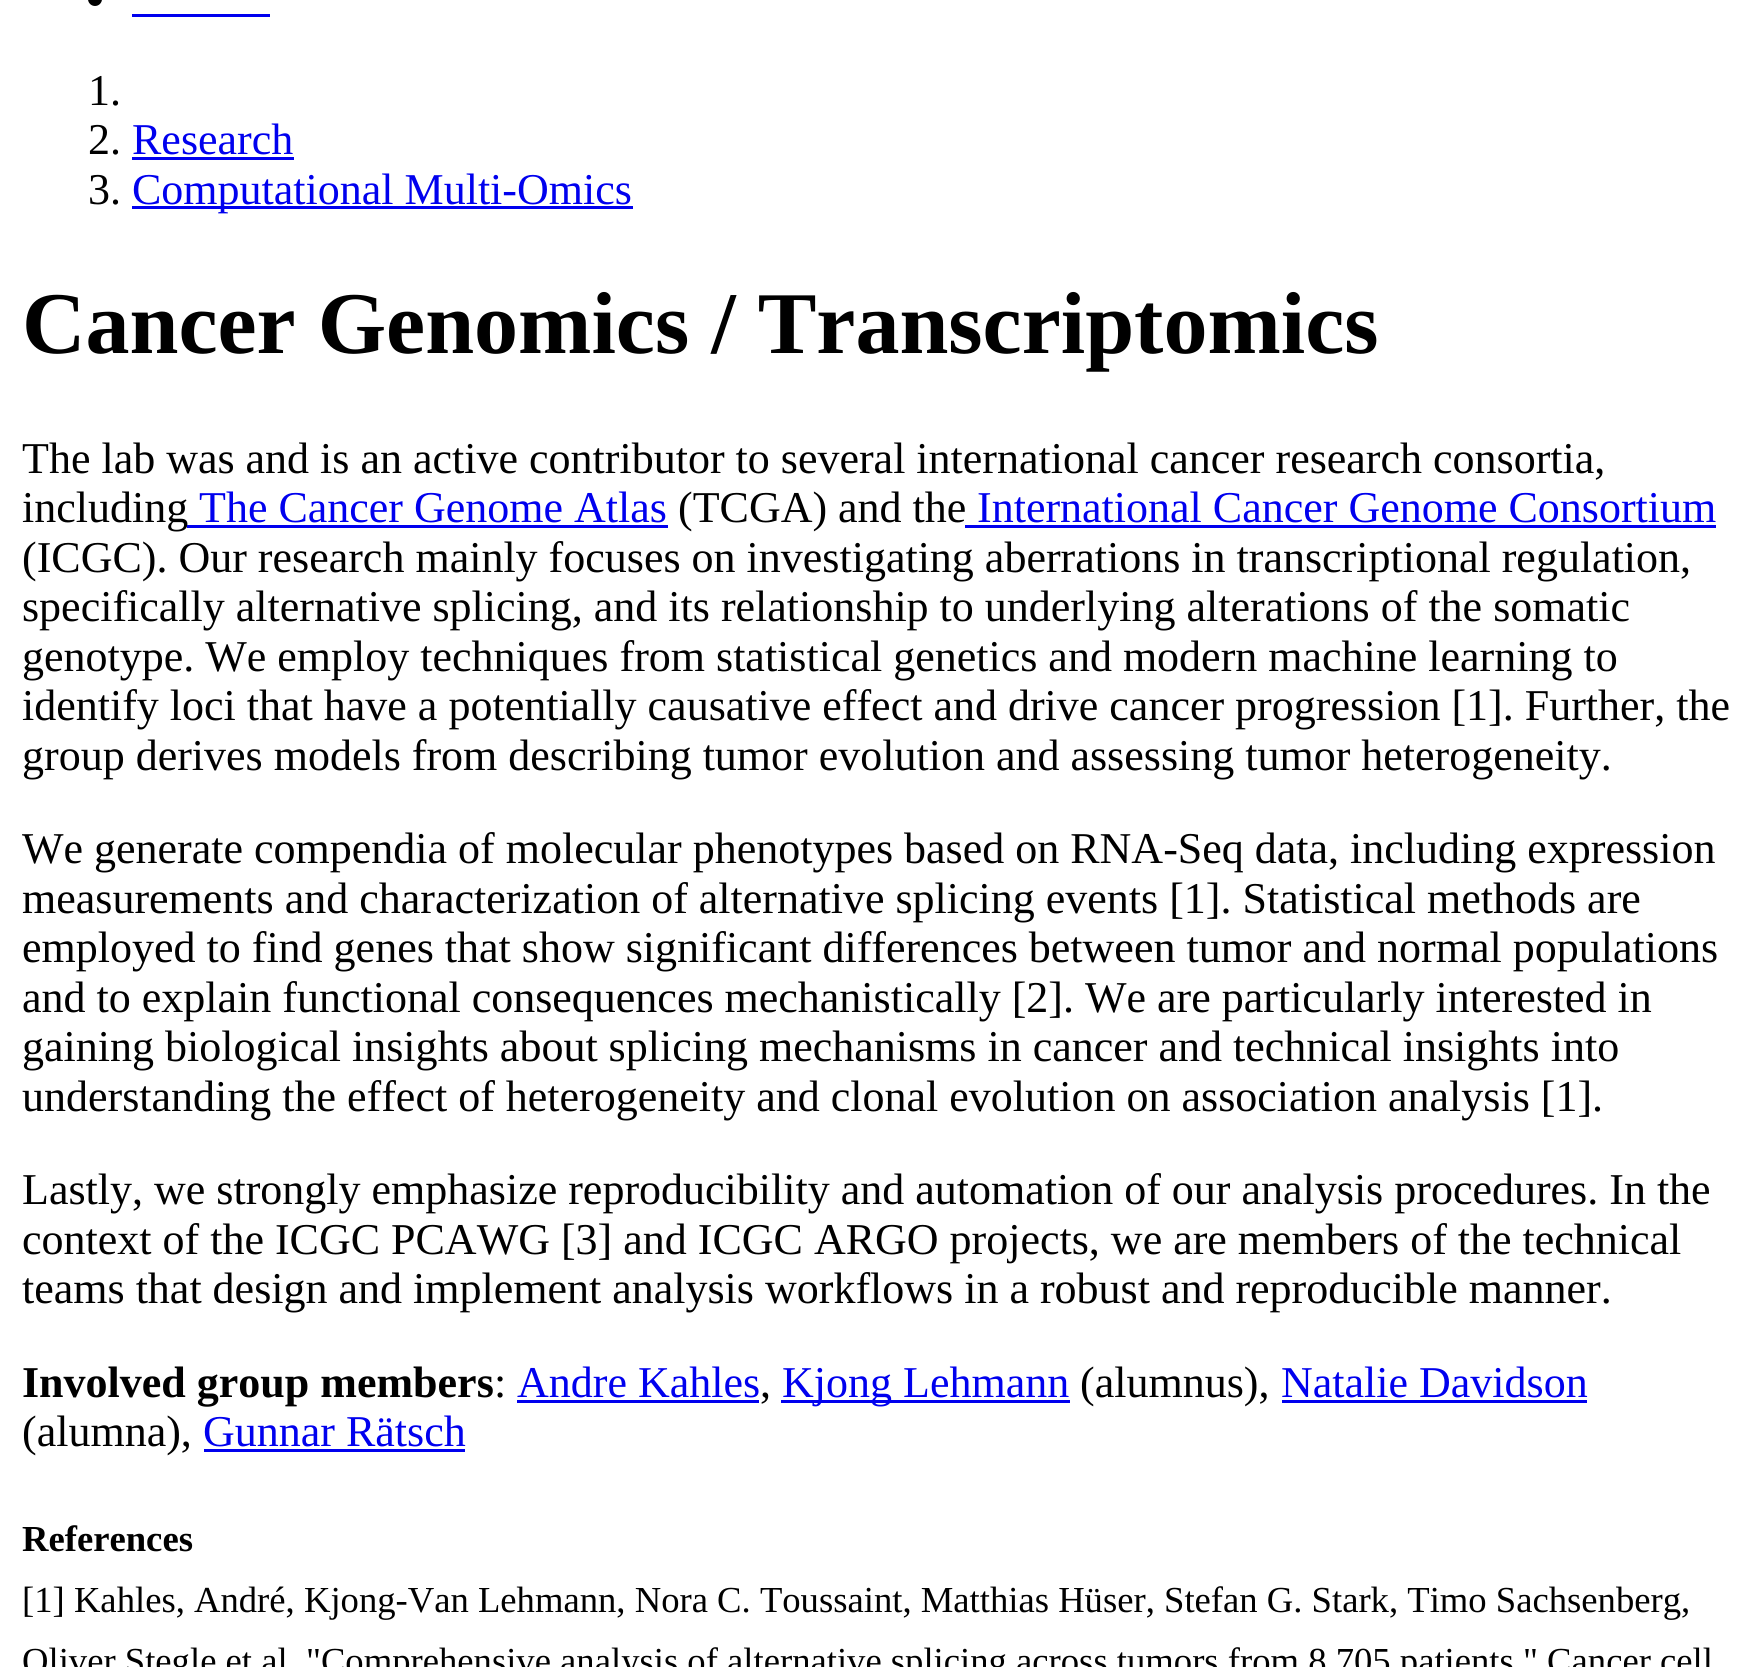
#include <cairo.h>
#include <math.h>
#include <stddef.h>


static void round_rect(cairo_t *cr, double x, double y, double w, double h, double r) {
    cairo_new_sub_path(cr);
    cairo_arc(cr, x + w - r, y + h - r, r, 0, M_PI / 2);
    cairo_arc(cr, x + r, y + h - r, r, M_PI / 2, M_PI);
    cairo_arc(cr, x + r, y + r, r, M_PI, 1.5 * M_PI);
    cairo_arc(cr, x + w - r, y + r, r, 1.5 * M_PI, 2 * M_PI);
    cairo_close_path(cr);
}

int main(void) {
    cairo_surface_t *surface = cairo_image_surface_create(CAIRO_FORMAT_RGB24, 1753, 1667);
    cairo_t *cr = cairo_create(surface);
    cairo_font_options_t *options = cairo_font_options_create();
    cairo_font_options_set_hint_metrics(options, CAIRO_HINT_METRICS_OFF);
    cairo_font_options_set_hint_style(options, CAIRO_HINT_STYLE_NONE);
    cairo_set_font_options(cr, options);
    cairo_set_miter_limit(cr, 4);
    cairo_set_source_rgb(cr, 1, 1, 1);
    cairo_paint(cr);
    cairo_set_source_rgb(cr, 0, 0, 0);
    round_rect(cr, 88, -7, 14, 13, 7);
    cairo_fill(cr);
    cairo_set_source_rgb(cr, 0, 0, 0.933);
    cairo_rectangle(cr, 132, 14, 138, 3);
    cairo_fill(cr);
    cairo_select_font_face(cr, "Liberation Serif", CAIRO_FONT_SLANT_NORMAL, CAIRO_FONT_WEIGHT_NORMAL);
    cairo_set_font_size(cr, 44);
    cairo_set_source_rgb(cr, 0, 0, 0);
    cairo_move_to(cr, 88, 105);
    cairo_show_text(cr, "1.");
    cairo_move_to(cr, 88, 154);
    cairo_show_text(cr, "2.");
    cairo_set_source_rgb(cr, 0, 0, 0.933);
    cairo_move_to(cr, 132, 154);
    cairo_show_text(cr, "Research");
    cairo_rectangle(cr, 132, 157, 162, 3);
    cairo_fill(cr);
    cairo_set_source_rgb(cr, 0, 0, 0);
    cairo_move_to(cr, 88, 204);
    cairo_show_text(cr, "3.");
    cairo_set_source_rgb(cr, 0, 0, 0.933);
    cairo_rectangle(cr, 132, 206, 501, 3);
    cairo_fill(cr);
    cairo_move_to(cr, 132, 204);
    cairo_show_text(cr, "Computational Multi-Omics");
    cairo_select_font_face(cr, "Liberation Serif", CAIRO_FONT_SLANT_NORMAL, CAIRO_FONT_WEIGHT_BOLD);
    cairo_set_font_size(cr, 88);
    cairo_set_source_rgb(cr, 0, 0, 0);
    cairo_move_to(cr, 22, 353);
    cairo_show_text(cr, "Cancer Genomics / Transcriptomics");
    cairo_select_font_face(cr, "Liberation Serif", CAIRO_FONT_SLANT_NORMAL, CAIRO_FONT_WEIGHT_NORMAL);
    cairo_set_font_size(cr, 44);
    cairo_move_to(cr, 22, 473);
    cairo_show_text(cr, "The lab was and is an active contributor to several international cancer research consortia,");
    cairo_move_to(cr, 22, 522);
    cairo_show_text(cr, "including");
    cairo_set_source_rgb(cr, 0, 0, 0.933);
    cairo_move_to(cr, 199, 522);
    cairo_show_text(cr, "The Cancer Genome Atlas");
    cairo_rectangle(cr, 187, 525, 481, 3);
    cairo_fill(cr);
    cairo_set_source_rgb(cr, 0, 0, 0);
    cairo_move_to(cr, 678, 522);
    cairo_show_text(cr, "(TCGA) and the");
    cairo_set_source_rgb(cr, 0, 0, 0.933);
    cairo_move_to(cr, 977, 522);
    cairo_show_text(cr, "International Cancer Genome Consortium");
    cairo_rectangle(cr, 965, 525, 751, 3);
    cairo_fill(cr);
    cairo_set_source_rgb(cr, 0, 0, 0);
    cairo_move_to(cr, 22, 572);
    cairo_show_text(cr, "(ICGC). Our research mainly focuses on investigating aberrations in transcriptional regulation,");
    cairo_move_to(cr, 22, 621);
    cairo_show_text(cr, "specifically alternative splicing, and its relationship to underlying alterations of the somatic");
    cairo_move_to(cr, 22, 671);
    cairo_show_text(cr, "genotype. We employ techniques from statistical genetics and modern machine learning to");
    cairo_move_to(cr, 22, 720);
    cairo_show_text(cr, "identify loci that have a potentially causative effect and drive cancer progression [1]. Further, the");
    cairo_move_to(cr, 22, 770);
    cairo_show_text(cr, "group derives models from describing tumor evolution and assessing tumor heterogeneity.");
    cairo_move_to(cr, 22, 863);
    cairo_show_text(cr, "We generate compendia of molecular phenotypes based on RNA-Seq data, including expression");
    cairo_move_to(cr, 22, 913);
    cairo_show_text(cr, "measurements and characterization of alternative splicing events [1]. Statistical methods are");
    cairo_move_to(cr, 22, 962);
    cairo_show_text(cr, "employed to find genes that show significant differences between tumor and normal populations");
    cairo_move_to(cr, 22, 1012);
    cairo_show_text(cr, "and to explain functional consequences mechanistically [2]. We are particularly interested in");
    cairo_move_to(cr, 22, 1061);
    cairo_show_text(cr, "gaining biological insights about splicing mechanisms in cancer and technical insights into");
    cairo_move_to(cr, 22, 1111);
    cairo_show_text(cr, "understanding the effect of heterogeneity and clonal evolution on association analysis [1].");
    cairo_move_to(cr, 22, 1204);
    cairo_show_text(cr, "Lastly, we strongly emphasize reproducibility and automation of our analysis procedures. In the");
    cairo_move_to(cr, 22, 1254);
    cairo_show_text(cr, "context of the ICGC PCAWG [3] and ICGC ARGO projects, we are members of the technical");
    cairo_move_to(cr, 22, 1303);
    cairo_show_text(cr, "teams that design and implement analysis workflows in a robust and reproducible manner.");
    cairo_select_font_face(cr, "Liberation Serif", CAIRO_FONT_SLANT_NORMAL, CAIRO_FONT_WEIGHT_BOLD);
    cairo_move_to(cr, 22, 1397);
    cairo_show_text(cr, "Involved group members");
    cairo_select_font_face(cr, "Liberation Serif", CAIRO_FONT_SLANT_NORMAL, CAIRO_FONT_WEIGHT_NORMAL);
    cairo_move_to(cr, 494, 1397);
    cairo_show_text(cr, ":");
    cairo_set_source_rgb(cr, 0, 0, 0.933);
    cairo_move_to(cr, 517, 1397);
    cairo_show_text(cr, "Andre Kahles");
    cairo_rectangle(cr, 517, 1400, 242, 3);
    cairo_fill(cr);
    cairo_set_source_rgb(cr, 0, 0, 0);
    cairo_move_to(cr, 760, 1397);
    cairo_show_text(cr, ",");
    cairo_set_source_rgb(cr, 0, 0, 0.933);
    cairo_rectangle(cr, 781, 1400, 289, 3);
    cairo_fill(cr);
    cairo_move_to(cr, 782, 1397);
    cairo_show_text(cr, "Kjong Lehmann");
    cairo_set_source_rgb(cr, 0, 0, 0);
    cairo_move_to(cr, 1080, 1397);
    cairo_show_text(cr, "(alumnus),");
    cairo_set_source_rgb(cr, 0, 0, 0.933);
    cairo_move_to(cr, 1281, 1397);
    cairo_show_text(cr, "Natalie Davidson");
    cairo_rectangle(cr, 1282, 1400, 305, 3);
    cairo_fill(cr);
    cairo_set_source_rgb(cr, 0, 0, 0);
    cairo_move_to(cr, 22, 1446);
    cairo_show_text(cr, "(alumna),");
    cairo_set_source_rgb(cr, 0, 0, 0.933);
    cairo_move_to(cr, 203, 1446);
    cairo_show_text(cr, "Gunnar Rätsch");
    cairo_rectangle(cr, 204, 1449, 261, 3);
    cairo_fill(cr);
    cairo_select_font_face(cr, "Liberation Serif", CAIRO_FONT_SLANT_NORMAL, CAIRO_FONT_WEIGHT_BOLD);
    cairo_set_font_size(cr, 36.65);
    cairo_set_source_rgb(cr, 0, 0, 0);
    cairo_move_to(cr, 22, 1551);
    cairo_show_text(cr, "References");
    cairo_select_font_face(cr, "Liberation Serif", CAIRO_FONT_SLANT_NORMAL, CAIRO_FONT_WEIGHT_NORMAL);
    cairo_move_to(cr, 22, 1612);
    cairo_show_text(cr, "[1] Kahles, André, Kjong-Van Lehmann, Nora C. Toussaint, Matthias Hüser, Stefan G. Stark, Timo Sachsenberg,");
    cairo_move_to(cr, 22, 1673);
    cairo_show_text(cr, "Oliver Stegle et al. \"Comprehensive analysis of alternative splicing across tumors from 8,705 patients.\" Cancer cell");
    cairo_surface_write_to_png(surface, "page.png");
    cairo_font_options_destroy(options);
    cairo_destroy(cr);
    cairo_surface_destroy(surface);
    return 0;
}
